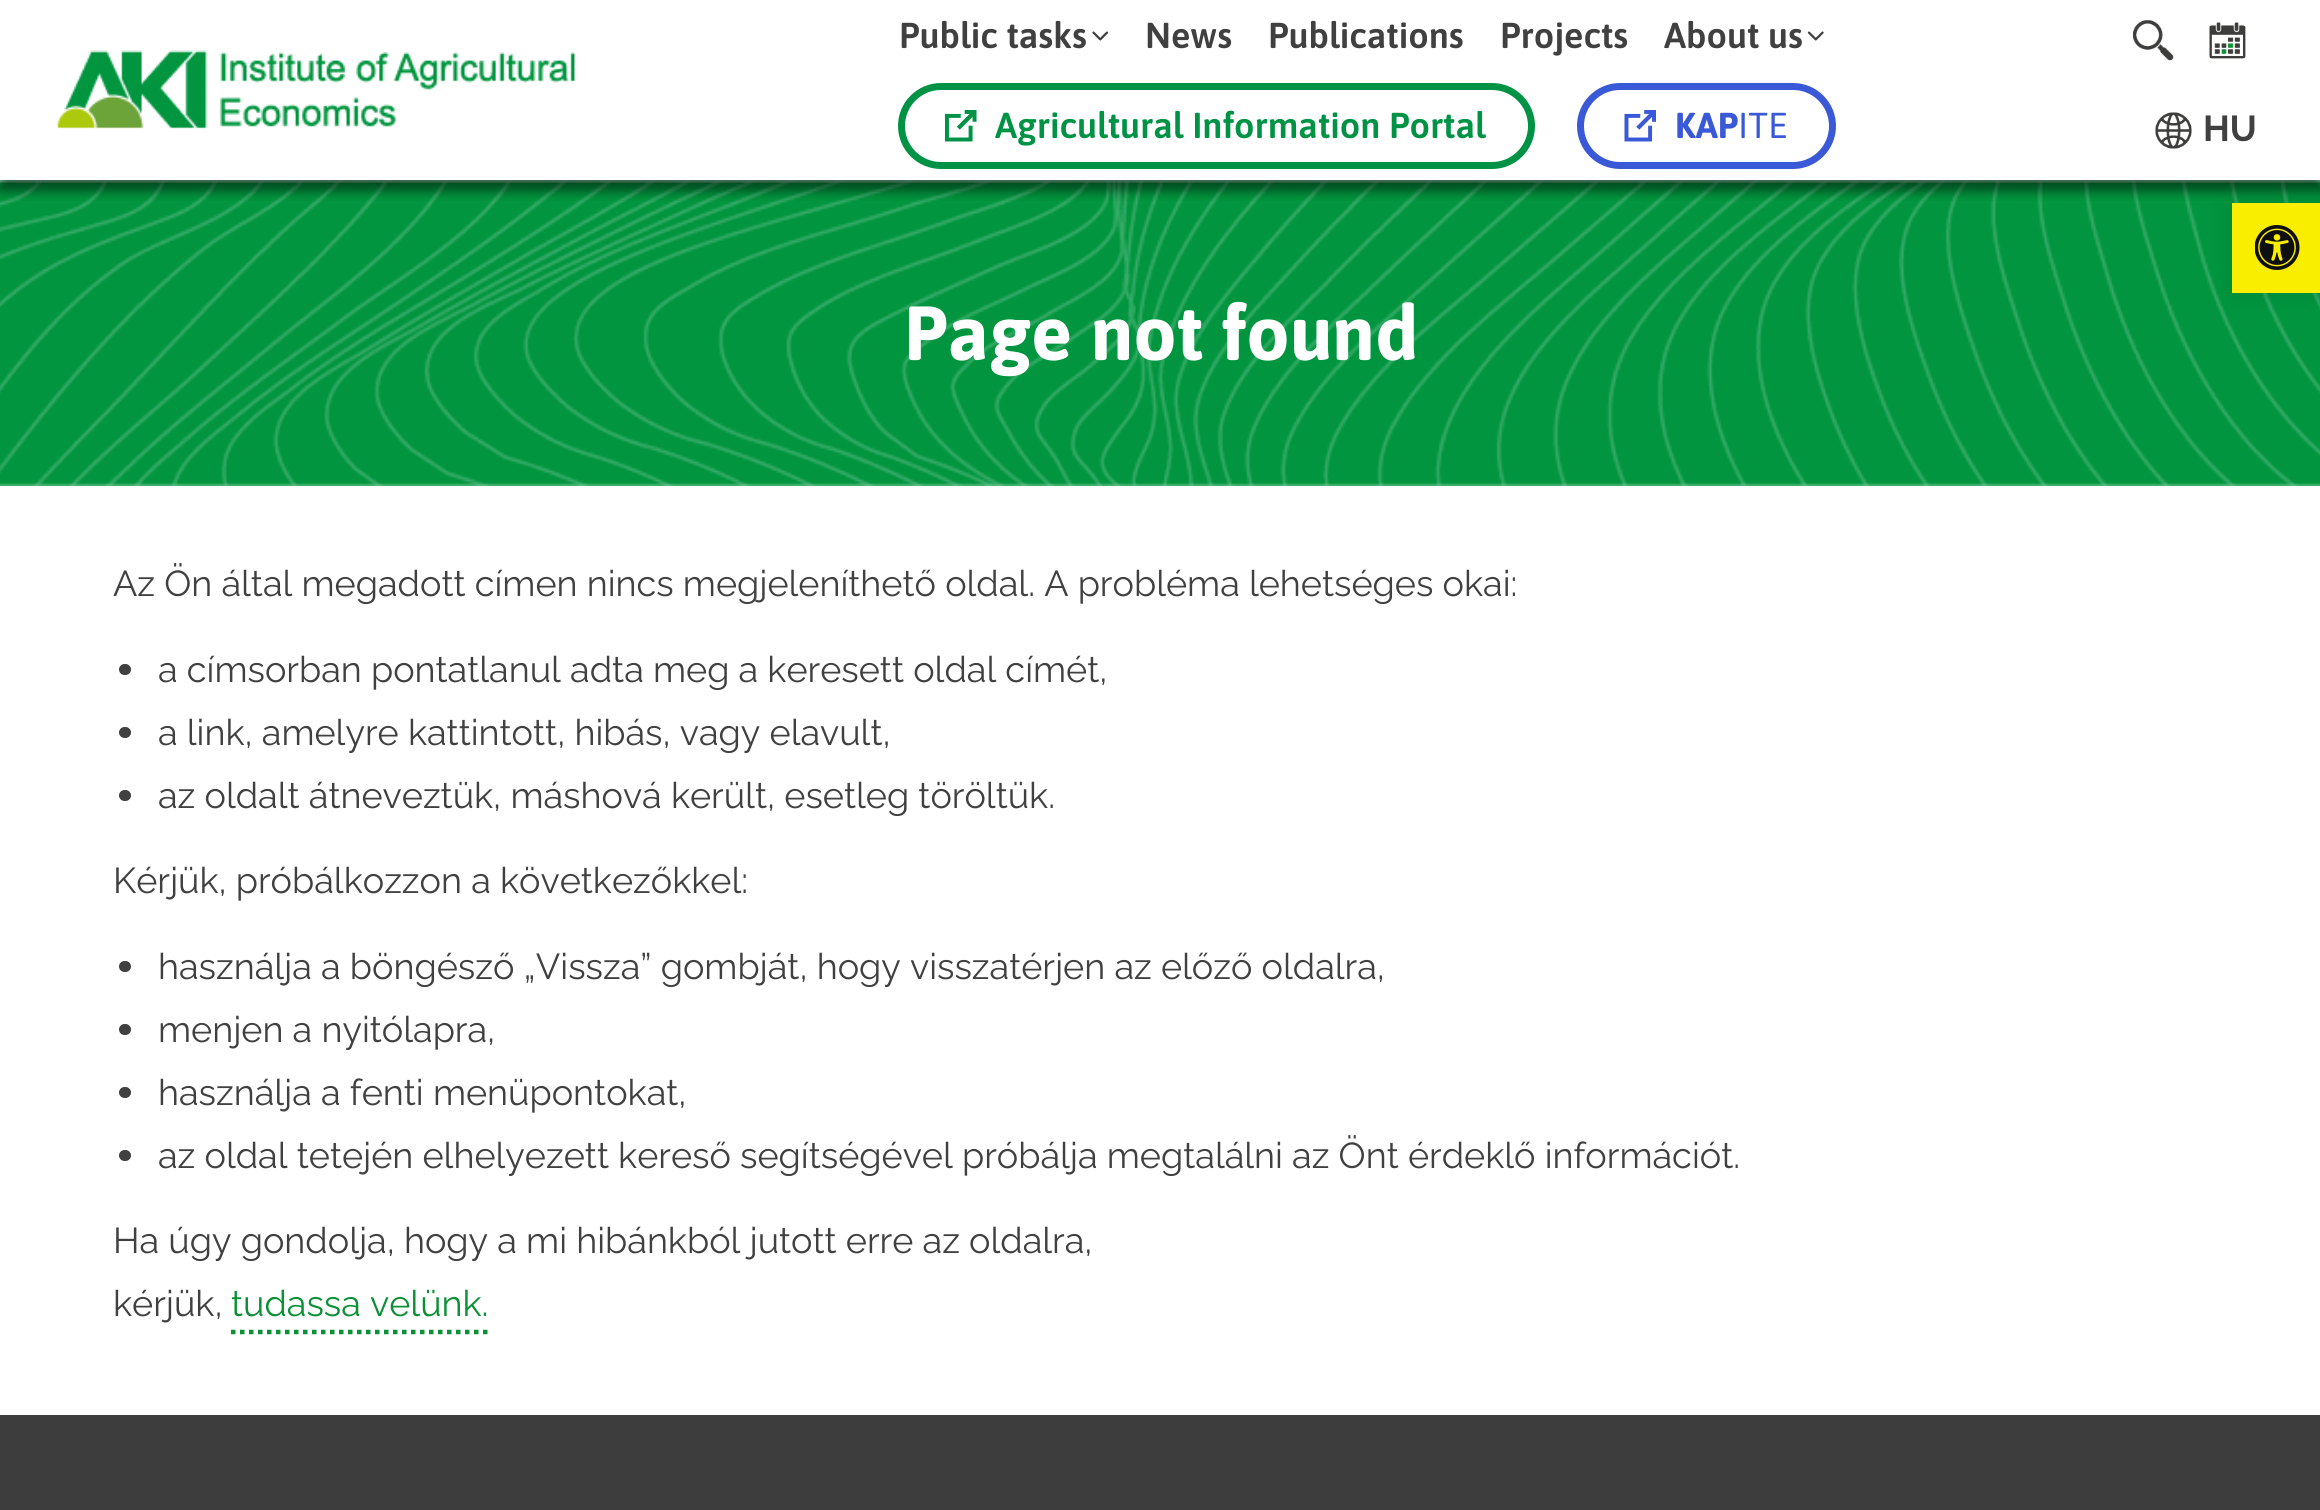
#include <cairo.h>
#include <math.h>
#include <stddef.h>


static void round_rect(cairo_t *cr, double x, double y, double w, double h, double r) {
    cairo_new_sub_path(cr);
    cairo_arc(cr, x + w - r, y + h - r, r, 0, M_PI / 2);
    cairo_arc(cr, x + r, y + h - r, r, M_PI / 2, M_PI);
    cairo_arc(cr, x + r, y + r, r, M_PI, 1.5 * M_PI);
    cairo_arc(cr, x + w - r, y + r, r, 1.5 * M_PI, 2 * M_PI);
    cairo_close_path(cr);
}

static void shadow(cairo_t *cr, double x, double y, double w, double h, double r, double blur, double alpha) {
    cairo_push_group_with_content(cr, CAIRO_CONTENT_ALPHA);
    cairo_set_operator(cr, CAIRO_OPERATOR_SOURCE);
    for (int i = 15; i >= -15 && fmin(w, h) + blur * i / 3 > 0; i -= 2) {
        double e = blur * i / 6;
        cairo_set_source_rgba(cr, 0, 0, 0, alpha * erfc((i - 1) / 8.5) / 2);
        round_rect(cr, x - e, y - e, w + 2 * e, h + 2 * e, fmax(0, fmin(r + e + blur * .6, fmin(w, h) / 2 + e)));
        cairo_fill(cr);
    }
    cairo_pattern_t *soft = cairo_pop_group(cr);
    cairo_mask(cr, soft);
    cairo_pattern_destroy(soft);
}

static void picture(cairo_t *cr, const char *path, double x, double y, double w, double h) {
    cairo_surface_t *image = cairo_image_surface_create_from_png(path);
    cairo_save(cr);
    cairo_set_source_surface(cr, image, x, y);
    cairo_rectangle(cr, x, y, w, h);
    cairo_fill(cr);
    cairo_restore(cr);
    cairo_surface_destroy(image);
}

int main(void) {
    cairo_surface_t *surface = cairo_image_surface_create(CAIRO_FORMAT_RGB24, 2320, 1510);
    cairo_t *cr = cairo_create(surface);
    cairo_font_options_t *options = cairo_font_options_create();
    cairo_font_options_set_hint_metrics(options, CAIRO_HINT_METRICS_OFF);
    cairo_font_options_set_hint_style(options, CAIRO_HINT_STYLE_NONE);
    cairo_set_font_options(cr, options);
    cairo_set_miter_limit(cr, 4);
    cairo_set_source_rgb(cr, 1, 1, 1);
    cairo_paint(cr);
    picture(cr, "img9.png", 0, 180, 2320, 306);
    cairo_save(cr);
    cairo_rectangle(cr, 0, 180, 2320, 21);
    cairo_clip(cr);
    cairo_set_source_rgb(cr, 0, 0, 0);
    shadow(cr, 0, 11, 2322, 180, 0, 5.5, 0.5);
    cairo_restore(cr);
    picture(cr, "img1.png", 57, 50, 518, 79);
    cairo_select_font_face(cr, "Asap SemiBold", CAIRO_FONT_SLANT_NORMAL, CAIRO_FONT_WEIGHT_NORMAL);
    cairo_set_font_size(cr, 36);
    cairo_set_source_rgb(cr, 0.251, 0.251, 0.255);
    cairo_move_to(cr, 899, 48);
    cairo_show_text(cr, "Public tasks");
    picture(cr, "img2.png", 1092, 31, 17, 10);
    cairo_move_to(cr, 1145, 48);
    cairo_show_text(cr, "News");
    cairo_move_to(cr, 1268, 48);
    cairo_show_text(cr, "Publications");
    cairo_move_to(cr, 1500, 48);
    cairo_show_text(cr, "Projects");
    cairo_move_to(cr, 1664, 48);
    cairo_show_text(cr, "About us");
    picture(cr, "img3.png", 1807, 31, 17, 10);
    round_rect(cr, 901.5, 86.5, 630, 79, 39.5);
    cairo_set_source_rgb(cr, 0, 0.576, 0.271);
    cairo_set_line_width(cr, 7);
    cairo_stroke(cr);
    picture(cr, "img4.png", 945, 110, 32, 32);
    cairo_move_to(cr, 995, 138);
    cairo_show_text(cr, "Agricultural Information Portal");
    round_rect(cr, 1580.5, 86.5, 252, 79, 39.5);
    cairo_set_source_rgb(cr, 0.227, 0.349, 0.839);
    cairo_stroke(cr);
    picture(cr, "img5.png", 1624, 110, 32, 32);
    cairo_select_font_face(cr, "Asap", CAIRO_FONT_SLANT_NORMAL, CAIRO_FONT_WEIGHT_BOLD);
    cairo_move_to(cr, 1675, 138);
    cairo_show_text(cr, "KAP");
    cairo_select_font_face(cr, "Asap", CAIRO_FONT_SLANT_NORMAL, CAIRO_FONT_WEIGHT_NORMAL);
    cairo_move_to(cr, 1738, 138);
    cairo_show_text(cr, "ITE");
    picture(cr, "img6.png", 2133, 20, 41, 41);
    picture(cr, "img7.png", 2209, 22, 37, 37);
    picture(cr, "img8.png", 2155, 112, 37, 37);
    cairo_select_font_face(cr, "Raleway", CAIRO_FONT_SLANT_NORMAL, CAIRO_FONT_WEIGHT_BOLD);
    cairo_set_source_rgb(cr, 0.251, 0.251, 0.255);
    cairo_move_to(cr, 2203, 141);
    cairo_show_text(cr, "HU");
    cairo_select_font_face(cr, "Asap", CAIRO_FONT_SLANT_NORMAL, CAIRO_FONT_WEIGHT_BOLD);
    cairo_set_font_size(cr, 76.5);
    cairo_set_source_rgb(cr, 1, 1, 1);
    cairo_move_to(cr, 904, 360);
    cairo_show_text(cr, "Page not found");
    cairo_select_font_face(cr, "Raleway", CAIRO_FONT_SLANT_NORMAL, CAIRO_FONT_WEIGHT_NORMAL);
    cairo_set_font_size(cr, 36);
    cairo_set_source_rgb(cr, 0.251, 0.251, 0.255);
    cairo_move_to(cr, 113, 596);
    cairo_show_text(cr, "Az Ön által megadott címen nincs megjeleníthető oldal. A probléma lehetséges okai:");
    round_rect(cr, 119, 664, 12, 11, 5.5);
    cairo_fill(cr);
    cairo_move_to(cr, 158, 682);
    cairo_show_text(cr, "a címsorban pontatlanul adta meg a keresett oldal címét,");
    round_rect(cr, 119, 727, 12, 11, 5.5);
    cairo_fill(cr);
    cairo_move_to(cr, 158, 745);
    cairo_show_text(cr, "a link, amelyre kattintott, hibás, vagy elavult,");
    round_rect(cr, 119, 790, 12, 11, 5.5);
    cairo_fill(cr);
    cairo_move_to(cr, 158, 808);
    cairo_show_text(cr, "az oldalt átneveztük, máshová került, esetleg töröltük.");
    cairo_move_to(cr, 113, 893);
    cairo_show_text(cr, "Kérjük, próbálkozzon a következőkkel:");
    round_rect(cr, 119, 961, 12, 11, 5.5);
    cairo_fill(cr);
    cairo_move_to(cr, 158, 979);
    cairo_show_text(cr, "használja a böngésző „Vissza” gombját, hogy visszatérjen az előző oldalra,");
    round_rect(cr, 119, 1024, 12, 11, 5.5);
    cairo_fill(cr);
    cairo_move_to(cr, 158, 1042);
    cairo_show_text(cr, "menjen a nyitólapra,");
    round_rect(cr, 119, 1087, 12, 11, 5.5);
    cairo_fill(cr);
    cairo_move_to(cr, 158, 1105);
    cairo_show_text(cr, "használja a fenti menüpontokat,");
    round_rect(cr, 119, 1150, 12, 11, 5.5);
    cairo_fill(cr);
    cairo_move_to(cr, 158, 1168);
    cairo_show_text(cr, "az oldal tetején elhelyezett kereső segítségével próbálja megtalálni az Önt érdeklő információt.");
    cairo_move_to(cr, 113, 1253);
    cairo_show_text(cr, "Ha úgy gondolja, hogy a mi hibánkból jutott erre az oldalra,");
    cairo_move_to(cr, 113, 1316);
    cairo_show_text(cr, "kérjük,");
    cairo_set_source_rgb(cr, 0.043, 0.565, 0.212);
    cairo_move_to(cr, 231, 1316);
    cairo_show_text(cr, "tudassa velünk.");
    cairo_new_path(cr);
    cairo_move_to(cr, 231, 1332);
    cairo_line_to(cr, 488.5, 1332);
    cairo_set_line_width(cr, 4.5);
    cairo_set_dash(cr, (double[]){4.5, 4.5}, 2, 0);
    cairo_stroke(cr);
    cairo_set_source_rgb(cr, 0.239, 0.239, 0.239);
    cairo_rectangle(cr, 0, 1415, 2320, 95);
    cairo_fill(cr);
    cairo_set_source_rgb(cr, 0, 0, 0);
    shadow(cr, 2232, 203, 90, 90, 0, 11, 0.1);
    cairo_set_source_rgb(cr, 0.976, 0.929, 0);
    cairo_rectangle(cr, 2232, 203, 88, 90);
    cairo_fill(cr);
    picture(cr, "img10.png", 2255, 225, 45, 45);
    cairo_surface_write_to_png(surface, "page.png");
    cairo_font_options_destroy(options);
    cairo_destroy(cr);
    cairo_surface_destroy(surface);
    return 0;
}
